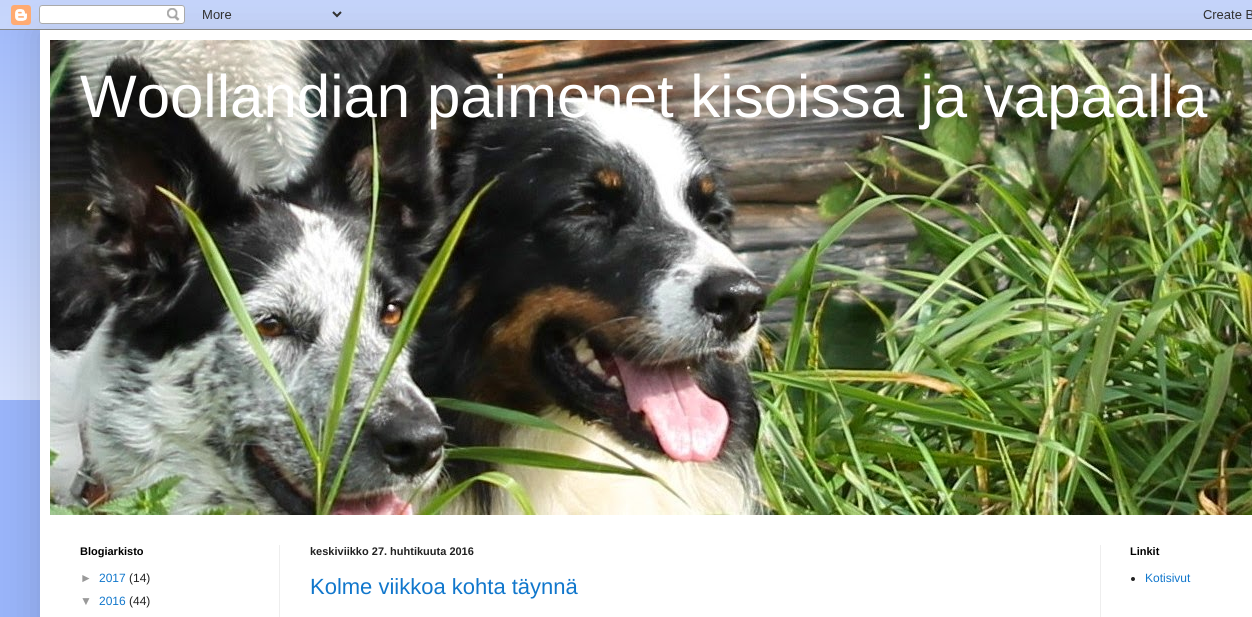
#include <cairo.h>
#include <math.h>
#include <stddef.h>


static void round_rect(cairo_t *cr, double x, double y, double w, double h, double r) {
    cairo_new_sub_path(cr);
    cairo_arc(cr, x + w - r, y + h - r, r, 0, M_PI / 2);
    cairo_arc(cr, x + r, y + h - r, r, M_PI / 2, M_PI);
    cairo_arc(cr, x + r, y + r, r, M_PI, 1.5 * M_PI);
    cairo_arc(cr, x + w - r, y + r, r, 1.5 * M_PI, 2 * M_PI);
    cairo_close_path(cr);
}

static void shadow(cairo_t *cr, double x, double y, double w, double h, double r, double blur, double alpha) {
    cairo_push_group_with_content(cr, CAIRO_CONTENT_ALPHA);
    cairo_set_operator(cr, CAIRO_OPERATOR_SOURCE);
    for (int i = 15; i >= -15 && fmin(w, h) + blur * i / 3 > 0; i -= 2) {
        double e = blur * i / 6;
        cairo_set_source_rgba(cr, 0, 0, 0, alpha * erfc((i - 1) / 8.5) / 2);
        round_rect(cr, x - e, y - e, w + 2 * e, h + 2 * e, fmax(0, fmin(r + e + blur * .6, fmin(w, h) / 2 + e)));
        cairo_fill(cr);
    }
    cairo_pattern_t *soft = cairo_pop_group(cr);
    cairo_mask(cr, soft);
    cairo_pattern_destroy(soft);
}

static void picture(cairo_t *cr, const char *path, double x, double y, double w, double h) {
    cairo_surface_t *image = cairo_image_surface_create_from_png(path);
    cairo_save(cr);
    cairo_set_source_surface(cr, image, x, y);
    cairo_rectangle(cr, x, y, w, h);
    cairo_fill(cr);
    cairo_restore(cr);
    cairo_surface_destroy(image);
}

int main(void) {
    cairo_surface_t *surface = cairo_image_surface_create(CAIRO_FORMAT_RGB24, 1252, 617);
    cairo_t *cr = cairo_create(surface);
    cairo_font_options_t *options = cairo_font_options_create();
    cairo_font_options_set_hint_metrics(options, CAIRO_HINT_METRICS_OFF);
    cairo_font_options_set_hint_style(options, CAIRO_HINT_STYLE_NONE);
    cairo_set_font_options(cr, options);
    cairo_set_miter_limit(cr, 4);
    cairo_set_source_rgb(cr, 0.6, 0.706, 0.976);
    cairo_paint(cr);
    picture(cr, "img1.png", 0, 0, 1252, 400);
    cairo_set_source_rgb(cr, 0, 0, 0);
    shadow(cr, 40, 30, 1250, 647, 0, 20, 0.15);
    picture(cr, "img2.png", 0, 0, 1252, 30);
    cairo_set_source_rgb(cr, 1, 1, 1);
    cairo_rectangle(cr, 40, 30, 1212, 587);
    cairo_fill(cr);
    picture(cr, "img3.png", 50, 40, 1202, 475);
    cairo_select_font_face(cr, "Liberation Sans", CAIRO_FONT_SLANT_NORMAL, CAIRO_FONT_WEIGHT_NORMAL);
    cairo_set_font_size(cr, 60);
    cairo_move_to(cr, 80, 117);
    cairo_show_text(cr, "Woollandian paimenet kisoissa ja vapaalla");
    cairo_set_source_rgb(cr, 0.933, 0.933, 0.933);
    cairo_rectangle(cr, 279, 545, 1, 72);
    cairo_fill(cr);
    cairo_rectangle(cr, 1100, 545, 1, 72);
    cairo_fill(cr);
    cairo_select_font_face(cr, "Liberation Sans", CAIRO_FONT_SLANT_NORMAL, CAIRO_FONT_WEIGHT_BOLD);
    cairo_set_font_size(cr, 11);
    cairo_set_source_rgb(cr, 0, 0, 0);
    cairo_move_to(cr, 80, 555);
    cairo_show_text(cr, "Blogiarkisto");
    cairo_select_font_face(cr, "Liberation Sans", CAIRO_FONT_SLANT_NORMAL, CAIRO_FONT_WEIGHT_NORMAL);
    cairo_set_font_size(cr, 12);
    cairo_set_source_rgb(cr, 0.6, 0.6, 0.6);
    cairo_move_to(cr, 80, 582);
    cairo_show_text(cr, "►");
    cairo_set_source_rgb(cr, 0.067, 0.467, 0.8);
    cairo_move_to(cr, 99, 582);
    cairo_show_text(cr, "2017");
    cairo_set_source_rgb(cr, 0.133, 0.133, 0.133);
    cairo_move_to(cr, 129, 582);
    cairo_show_text(cr, "(14)");
    cairo_set_source_rgb(cr, 0.6, 0.6, 0.6);
    cairo_move_to(cr, 80, 605);
    cairo_show_text(cr, "▼");
    cairo_set_source_rgb(cr, 0.067, 0.467, 0.8);
    cairo_move_to(cr, 99, 605);
    cairo_show_text(cr, "2016");
    cairo_set_source_rgb(cr, 0.133, 0.133, 0.133);
    cairo_move_to(cr, 129, 605);
    cairo_show_text(cr, "(44)");
    cairo_select_font_face(cr, "Liberation Sans", CAIRO_FONT_SLANT_NORMAL, CAIRO_FONT_WEIGHT_BOLD);
    cairo_set_font_size(cr, 11);
    cairo_move_to(cr, 310, 555);
    cairo_show_text(cr, "keskiviikko 27. huhtikuuta 2016");
    cairo_select_font_face(cr, "Liberation Sans", CAIRO_FONT_SLANT_NORMAL, CAIRO_FONT_WEIGHT_NORMAL);
    cairo_set_font_size(cr, 22);
    cairo_set_source_rgb(cr, 0.067, 0.467, 0.8);
    cairo_move_to(cr, 310, 594);
    cairo_show_text(cr, "Kolme viikkoa kohta täynnä");
    cairo_select_font_face(cr, "Liberation Sans", CAIRO_FONT_SLANT_NORMAL, CAIRO_FONT_WEIGHT_BOLD);
    cairo_set_font_size(cr, 11);
    cairo_set_source_rgb(cr, 0, 0, 0);
    cairo_move_to(cr, 1130, 555);
    cairo_show_text(cr, "Linkit");
    cairo_set_source_rgb(cr, 0.133, 0.133, 0.133);
    cairo_new_path(cr);
    cairo_arc(cr, 1133, 579, 2, 0, 2 * M_PI);
    cairo_fill(cr);
    cairo_select_font_face(cr, "Liberation Sans", CAIRO_FONT_SLANT_NORMAL, CAIRO_FONT_WEIGHT_NORMAL);
    cairo_set_font_size(cr, 12);
    cairo_set_source_rgb(cr, 0.067, 0.467, 0.8);
    cairo_move_to(cr, 1145, 582);
    cairo_show_text(cr, "Kotisivut");
    cairo_surface_write_to_png(surface, "page.png");
    cairo_font_options_destroy(options);
    cairo_destroy(cr);
    cairo_surface_destroy(surface);
    return 0;
}
